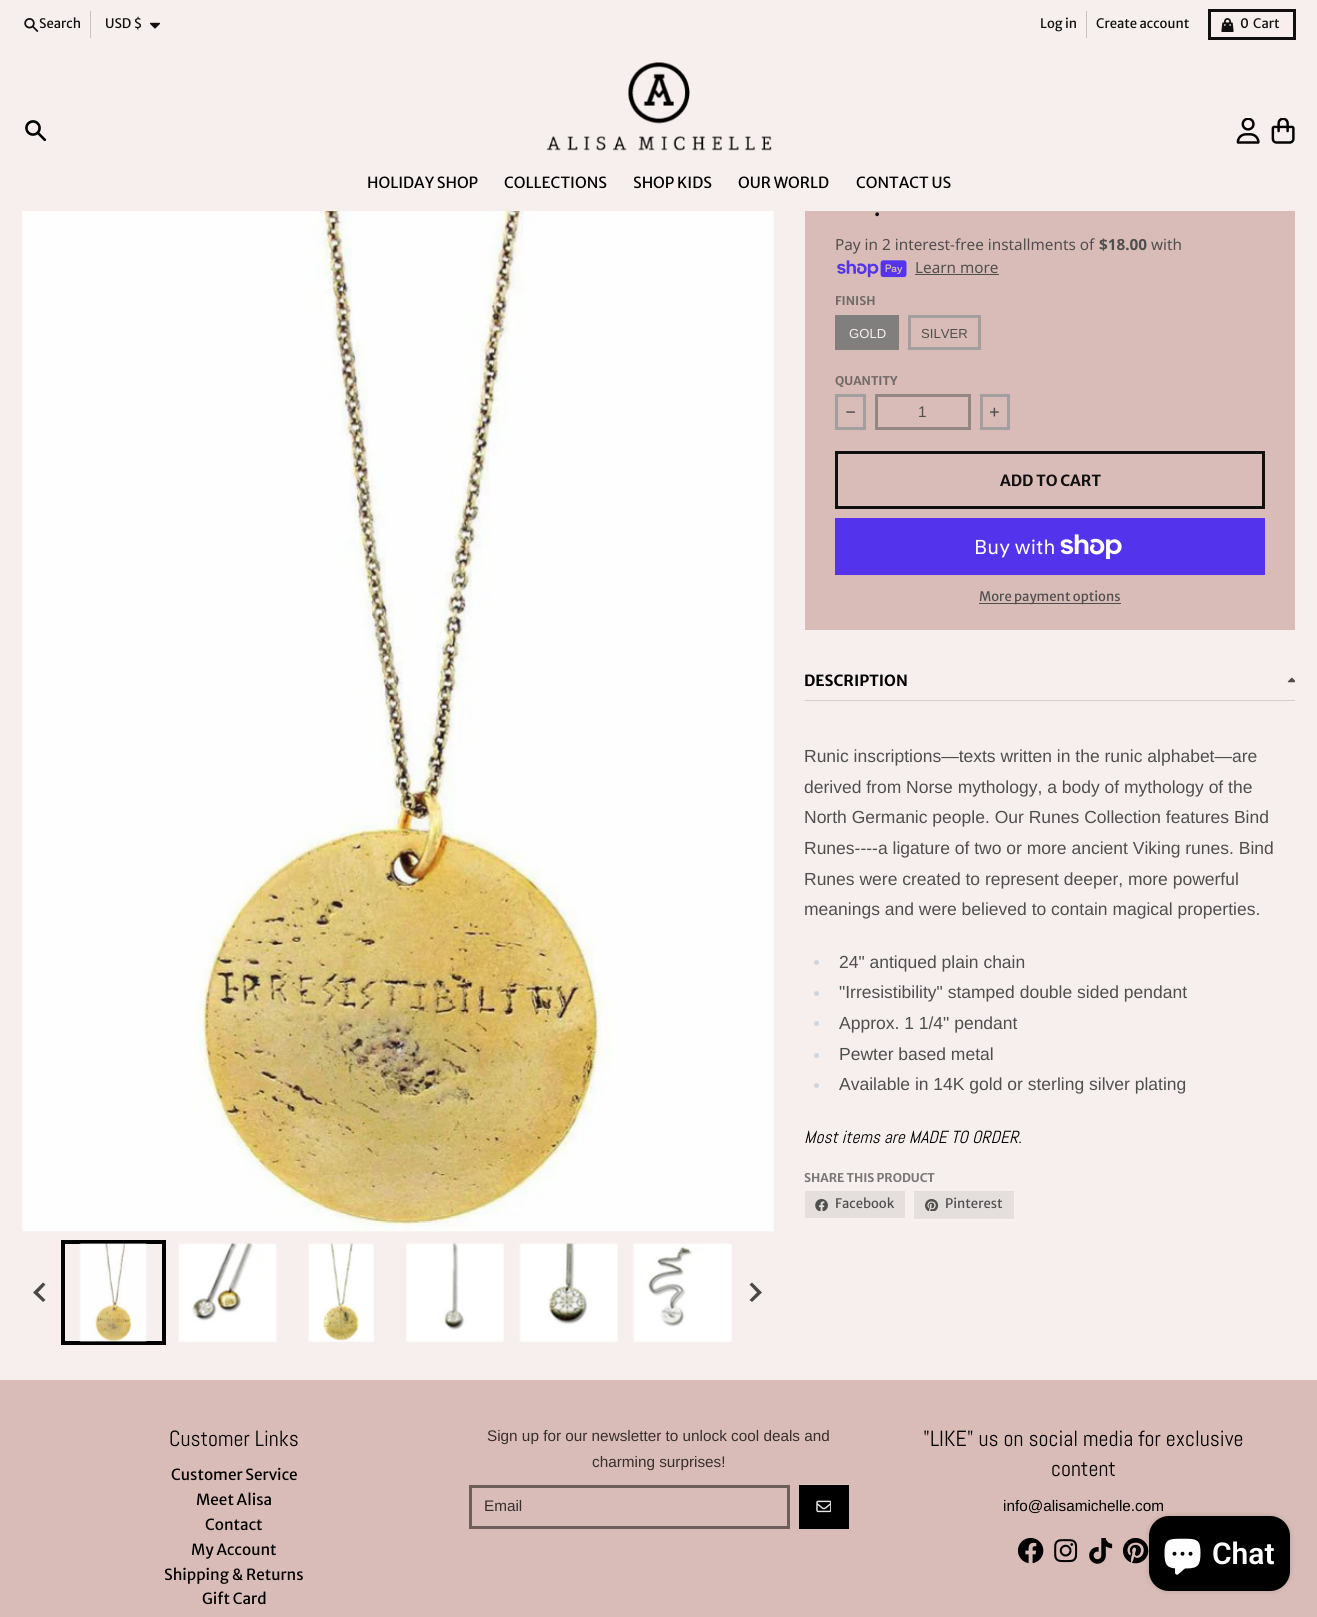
#include <cairo.h>
#include <math.h>
#include <stddef.h>


static void round_rect(cairo_t *cr, double x, double y, double w, double h, double r) {
    cairo_new_sub_path(cr);
    cairo_arc(cr, x + w - r, y + h - r, r, 0, M_PI / 2);
    cairo_arc(cr, x + r, y + h - r, r, M_PI / 2, M_PI);
    cairo_arc(cr, x + r, y + r, r, M_PI, 1.5 * M_PI);
    cairo_arc(cr, x + w - r, y + r, r, 1.5 * M_PI, 2 * M_PI);
    cairo_close_path(cr);
}

static void shadow(cairo_t *cr, double x, double y, double w, double h, double r, double blur, double alpha) {
    cairo_push_group_with_content(cr, CAIRO_CONTENT_ALPHA);
    cairo_set_operator(cr, CAIRO_OPERATOR_SOURCE);
    for (int i = 15; i >= -15 && fmin(w, h) + blur * i / 3 > 0; i -= 2) {
        double e = blur * i / 6;
        cairo_set_source_rgba(cr, 0, 0, 0, alpha * erfc((i - 1) / 8.5) / 2);
        round_rect(cr, x - e, y - e, w + 2 * e, h + 2 * e, fmax(0, fmin(r + e + blur * .6, fmin(w, h) / 2 + e)));
        cairo_fill(cr);
    }
    cairo_pattern_t *soft = cairo_pop_group(cr);
    cairo_mask(cr, soft);
    cairo_pattern_destroy(soft);
}

static void picture(cairo_t *cr, const char *path, double x, double y, double w, double h) {
    cairo_surface_t *image = cairo_image_surface_create_from_png(path);
    cairo_save(cr);
    cairo_set_source_surface(cr, image, x, y);
    cairo_rectangle(cr, x, y, w, h);
    cairo_fill(cr);
    cairo_restore(cr);
    cairo_surface_destroy(image);
}

int main(void) {
    cairo_surface_t *surface = cairo_image_surface_create(CAIRO_FORMAT_RGB24, 1317, 1617);
    cairo_t *cr = cairo_create(surface);
    cairo_font_options_t *options = cairo_font_options_create();
    cairo_font_options_set_hint_metrics(options, CAIRO_HINT_METRICS_OFF);
    cairo_font_options_set_hint_style(options, CAIRO_HINT_STYLE_NONE);
    cairo_set_font_options(cr, options);
    cairo_set_miter_limit(cr, 4);
    cairo_set_source_rgb(cr, 0.851, 0.737, 0.718);
    cairo_paint(cr);
    cairo_set_source_rgb(cr, 0.961, 0.937, 0.929);
    cairo_rectangle(cr, 0, 0, 1317, 1380);
    cairo_fill(cr);
    picture(cr, "img1.png", 24, 18, 15, 14);
    cairo_select_font_face(cr, "Merriweather Sans", CAIRO_FONT_SLANT_NORMAL, CAIRO_FONT_WEIGHT_NORMAL);
    cairo_set_font_size(cr, 13.1);
    cairo_set_source_rgb(cr, 0.063, 0.063, 0.063);
    cairo_move_to(cr, 39, 28);
    cairo_show_text(cr, "Search");
    cairo_set_source_rgb(cr, 0.78, 0.761, 0.757);
    cairo_rectangle(cr, 90, 11, 1, 27);
    cairo_fill(cr);
    cairo_set_source_rgb(cr, 0.063, 0.063, 0.063);
    cairo_move_to(cr, 105, 28);
    cairo_show_text(cr, "USD $");
    picture(cr, "img2.png", 149, 22, 12, 7);
    cairo_move_to(cr, 1040, 28);
    cairo_show_text(cr, "Log in");
    cairo_set_source_rgb(cr, 0.78, 0.761, 0.757);
    cairo_rectangle(cr, 1086, 11, 1, 27);
    cairo_fill(cr);
    cairo_set_source_rgb(cr, 0.063, 0.063, 0.063);
    cairo_move_to(cr, 1096, 28);
    cairo_show_text(cr, "Create account");
    cairo_rectangle(cr, 1209.5, 10.5, 85, 28);
    cairo_set_line_width(cr, 3);
    cairo_stroke(cr);
    picture(cr, "img3.png", 1221, 18, 13, 14);
    cairo_move_to(cr, 1240, 28);
    cairo_show_text(cr, "0");
    cairo_move_to(cr, 1253, 28);
    cairo_show_text(cr, "Cart");
    picture(cr, "img4.png", 25, 120, 22, 22);
    picture(cr, "img5.png", 1236, 118, 24, 26);
    picture(cr, "img6.png", 1271, 118, 24, 26);
    picture(cr, "img7.png", 546, 62, 226, 89);
    cairo_set_font_size(cr, 15.3);
    cairo_set_source_rgb(cr, 0, 0, 0);
    cairo_move_to(cr, 367, 188);
    cairo_show_text(cr, "HOLIDAY SHOP");
    cairo_move_to(cr, 504, 188);
    cairo_show_text(cr, "COLLECTIONS");
    cairo_move_to(cr, 633, 188);
    cairo_show_text(cr, "SHOP KIDS");
    cairo_move_to(cr, 738, 188);
    cairo_show_text(cr, "OUR WORLD");
    cairo_move_to(cr, 856, 188);
    cairo_show_text(cr, "CONTACT US");
    picture(cr, "img8.png", 22, 211, 752, 1021);
    cairo_rectangle(cr, 63, 1242, 101, 101);
    cairo_set_line_width(cr, 4);
    cairo_stroke(cr);
    picture(cr, "img9.png", 79, 1243, 68, 99);
    picture(cr, "img10.png", 178, 1243, 99, 99);
    picture(cr, "img11.png", 308, 1243, 66, 99);
    picture(cr, "img12.png", 406, 1243, 98, 99);
    picture(cr, "img13.png", 519, 1243, 99, 99);
    picture(cr, "img14.png", 633, 1243, 99, 99);
    cairo_set_source_rgb(cr, 0.29, 0.282, 0.278);
    cairo_new_path(cr);
    cairo_move_to(cr, 43, 1282.5);
    cairo_line_to(cr, 45.5, 1284.5);
    cairo_line_to(cr, 38, 1292.5);
    cairo_line_to(cr, 45.5, 1300);
    cairo_line_to(cr, 43, 1302);
    cairo_line_to(cr, 33, 1292.5);
    cairo_close_path(cr);
    cairo_fill(cr);
    cairo_new_path(cr);
    cairo_move_to(cr, 752, 1282.5);
    cairo_line_to(cr, 749.5, 1284.5);
    cairo_line_to(cr, 757, 1292.5);
    cairo_line_to(cr, 749.5, 1300);
    cairo_line_to(cr, 752, 1302);
    cairo_line_to(cr, 762, 1292.5);
    cairo_close_path(cr);
    cairo_fill(cr);
    cairo_set_source_rgb(cr, 0.851, 0.737, 0.718);
    cairo_rectangle(cr, 805, 211, 490, 419);
    cairo_fill(cr);
    cairo_select_font_face(cr, "Merriweather Sans", CAIRO_FONT_SLANT_NORMAL, CAIRO_FONT_WEIGHT_BOLD);
    cairo_set_font_size(cr, 20);
    cairo_set_source_rgb(cr, 0.063, 0.063, 0.063);
    cairo_move_to(cr, 874, 216);
    cairo_show_text(cr, ".");
    cairo_select_font_face(cr, "Noto Sans", CAIRO_FONT_SLANT_NORMAL, CAIRO_FONT_WEIGHT_NORMAL);
    cairo_set_font_size(cr, 15.3);
    cairo_set_source_rgb(cr, 0.31, 0.31, 0.31);
    cairo_move_to(cr, 835, 250);
    cairo_show_text(cr, "Pay in 2 interest-free installments of");
    cairo_select_font_face(cr, "Noto Sans", CAIRO_FONT_SLANT_NORMAL, CAIRO_FONT_WEIGHT_BOLD);
    cairo_move_to(cr, 1099, 250);
    cairo_show_text(cr, "$18.00");
    cairo_select_font_face(cr, "Noto Sans", CAIRO_FONT_SLANT_NORMAL, CAIRO_FONT_WEIGHT_NORMAL);
    cairo_move_to(cr, 1151, 250);
    cairo_show_text(cr, "with");
    picture(cr, "img15.png", 837, 260, 70, 18);
    cairo_move_to(cr, 915, 273);
    cairo_show_text(cr, "Learn more");
    cairo_rectangle(cr, 915, 274, 84, 1);
    cairo_fill(cr);
    cairo_select_font_face(cr, "Merriweather Sans", CAIRO_FONT_SLANT_NORMAL, CAIRO_FONT_WEIGHT_BOLD);
    cairo_set_font_size(cr, 12);
    cairo_set_source_rgb(cr, 0.447, 0.416, 0.412);
    cairo_move_to(cr, 835, 305);
    cairo_show_text(cr, "FINISH");
    cairo_set_source_rgb(cr, 0.506, 0.498, 0.494);
    cairo_rectangle(cr, 835, 315, 64, 35);
    cairo_fill(cr);
    cairo_select_font_face(cr, "Liberation Sans", CAIRO_FONT_SLANT_NORMAL, CAIRO_FONT_WEIGHT_NORMAL);
    cairo_set_font_size(cr, 13.1);
    cairo_set_source_rgb(cr, 0.961, 0.937, 0.929);
    cairo_move_to(cr, 849, 338);
    cairo_show_text(cr, "GOLD");
    cairo_rectangle(cr, 909.5, 316.5, 70, 32);
    cairo_set_source_rgb(cr, 0.635, 0.624, 0.62);
    cairo_set_line_width(cr, 3);
    cairo_stroke(cr);
    cairo_set_source_rgb(cr, 0.31, 0.31, 0.31);
    cairo_move_to(cr, 921, 338);
    cairo_show_text(cr, "SILVER");
    cairo_select_font_face(cr, "Merriweather Sans", CAIRO_FONT_SLANT_NORMAL, CAIRO_FONT_WEIGHT_BOLD);
    cairo_set_font_size(cr, 12);
    cairo_set_source_rgb(cr, 0.447, 0.416, 0.412);
    cairo_move_to(cr, 835, 385);
    cairo_show_text(cr, "QUANTITY");
    cairo_rectangle(cr, 836.5, 395.5, 28, 33);
    cairo_set_source_rgb(cr, 0.635, 0.624, 0.62);
    cairo_stroke(cr);
    picture(cr, "img16.png", 846, 411, 9, 2);
    cairo_rectangle(cr, 876.5, 395.5, 93, 33);
    cairo_set_source_rgb(cr, 0.58, 0.525, 0.514);
    cairo_stroke(cr);
    cairo_select_font_face(cr, "Liberation Sans", CAIRO_FONT_SLANT_NORMAL, CAIRO_FONT_WEIGHT_NORMAL);
    cairo_set_font_size(cr, 15.3);
    cairo_set_source_rgb(cr, 0.31, 0.31, 0.31);
    cairo_move_to(cr, 918, 417);
    cairo_show_text(cr, "1");
    cairo_rectangle(cr, 981.5, 395.5, 27, 33);
    cairo_set_source_rgb(cr, 0.635, 0.624, 0.62);
    cairo_stroke(cr);
    picture(cr, "img17.png", 990, 407, 9, 10);
    cairo_rectangle(cr, 836.5, 452.5, 427, 55);
    cairo_set_source_rgb(cr, 0.063, 0.063, 0.063);
    cairo_stroke(cr);
    cairo_select_font_face(cr, "Merriweather Sans", CAIRO_FONT_SLANT_NORMAL, CAIRO_FONT_WEIGHT_BOLD);
    cairo_move_to(cr, 1000, 486);
    cairo_show_text(cr, "ADD TO CART");
    cairo_set_source_rgb(cr, 0.329, 0.2, 0.922);
    cairo_rectangle(cr, 835, 518, 430, 57);
    cairo_fill(cr);
    cairo_select_font_face(cr, "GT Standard", CAIRO_FONT_SLANT_NORMAL, CAIRO_FONT_WEIGHT_NORMAL);
    cairo_set_font_size(cr, 20);
    cairo_set_source_rgb(cr, 1, 1, 1);
    cairo_move_to(cr, 974, 554);
    cairo_show_text(cr, "Buy with");
    picture(cr, "img18.png", 1060, 534, 62, 25);
    cairo_set_source_rgb(cr, 0.31, 0.31, 0.31);
    cairo_rectangle(cr, 979, 603, 142, 1);
    cairo_fill(cr);
    cairo_select_font_face(cr, "Merriweather Sans", CAIRO_FONT_SLANT_NORMAL, CAIRO_FONT_WEIGHT_NORMAL);
    cairo_set_font_size(cr, 13.1);
    cairo_move_to(cr, 979, 601);
    cairo_show_text(cr, "More payment options");
    cairo_set_source_rgb(cr, 0.831, 0.812, 0.804);
    cairo_rectangle(cr, 805, 700, 490, 1);
    cairo_fill(cr);
    cairo_select_font_face(cr, "Merriweather Sans", CAIRO_FONT_SLANT_NORMAL, CAIRO_FONT_WEIGHT_BOLD);
    cairo_set_font_size(cr, 15.3);
    cairo_set_source_rgb(cr, 0, 0, 0);
    cairo_move_to(cr, 804, 686);
    cairo_show_text(cr, "DESCRIPTION");
    picture(cr, "img19.png", 1287, 677, 8, 6);
    cairo_select_font_face(cr, "Liberation Sans", CAIRO_FONT_SLANT_NORMAL, CAIRO_FONT_WEIGHT_NORMAL);
    cairo_set_font_size(cr, 17.5);
    cairo_set_source_rgb(cr, 0.31, 0.31, 0.31);
    cairo_move_to(cr, 804, 762);
    cairo_show_text(cr, "Runic inscriptions—texts written in the runic alphabet—are");
    cairo_move_to(cr, 804, 793);
    cairo_show_text(cr, "derived from Norse mythology, a body of mythology of the");
    cairo_move_to(cr, 804, 823);
    cairo_show_text(cr, "North Germanic people. Our Runes Collection features Bind");
    cairo_move_to(cr, 804, 854);
    cairo_show_text(cr, "Runes----a ligature of two or more ancient Viking runes. Bind");
    cairo_move_to(cr, 804, 885);
    cairo_show_text(cr, "Runes were created to represent deeper, more powerful");
    cairo_move_to(cr, 804, 915);
    cairo_show_text(cr, "meanings and were believed to contain magical properties.");
    cairo_set_source_rgb(cr, 0.82, 0.835, 0.859);
    cairo_new_path(cr);
    cairo_arc(cr, 816.5, 962.5, 2.5, 0, 2 * M_PI);
    cairo_fill(cr);
    cairo_set_source_rgb(cr, 0.31, 0.31, 0.31);
    cairo_move_to(cr, 839, 968);
    cairo_show_text(cr, "24\" antiqued plain chain");
    cairo_set_source_rgb(cr, 0.82, 0.835, 0.859);
    cairo_new_path(cr);
    cairo_arc(cr, 816.5, 993.5, 2.5, 0, 2 * M_PI);
    cairo_fill(cr);
    cairo_set_source_rgb(cr, 0.31, 0.31, 0.31);
    cairo_move_to(cr, 839, 998);
    cairo_show_text(cr, "\"Irresistibility\" stamped double sided pendant");
    cairo_set_source_rgb(cr, 0.82, 0.835, 0.859);
    cairo_new_path(cr);
    cairo_arc(cr, 816.5, 1023.5, 2.5, 0, 2 * M_PI);
    cairo_fill(cr);
    cairo_set_source_rgb(cr, 0.31, 0.31, 0.31);
    cairo_move_to(cr, 839, 1029);
    cairo_show_text(cr, "Approx. 1 1/4\" pendant");
    cairo_set_source_rgb(cr, 0.82, 0.835, 0.859);
    cairo_new_path(cr);
    cairo_arc(cr, 816.5, 1055.5, 2.5, 0, 2 * M_PI);
    cairo_fill(cr);
    cairo_set_source_rgb(cr, 0.31, 0.31, 0.31);
    cairo_move_to(cr, 839, 1060);
    cairo_show_text(cr, "Pewter based metal");
    cairo_set_source_rgb(cr, 0.82, 0.835, 0.859);
    cairo_new_path(cr);
    cairo_arc(cr, 816.5, 1085.5, 2.5, 0, 2 * M_PI);
    cairo_fill(cr);
    cairo_set_source_rgb(cr, 0.31, 0.31, 0.31);
    cairo_move_to(cr, 839, 1090);
    cairo_show_text(cr, "Available in 14K gold or sterling silver plating");
    cairo_select_font_face(cr, "Abel", CAIRO_FONT_SLANT_ITALIC, CAIRO_FONT_WEIGHT_NORMAL);
    cairo_set_source_rgb(cr, 0, 0, 0);
    cairo_move_to(cr, 804, 1143);
    cairo_show_text(cr, "Most items are MADE TO ORDER.");
    cairo_select_font_face(cr, "Merriweather Sans", CAIRO_FONT_SLANT_NORMAL, CAIRO_FONT_WEIGHT_BOLD);
    cairo_set_font_size(cr, 12);
    cairo_set_source_rgb(cr, 0.475, 0.467, 0.467);
    cairo_move_to(cr, 804, 1182);
    cairo_show_text(cr, "SHARE THIS PRODUCT");
    cairo_set_source_rgb(cr, 0.894, 0.875, 0.867);
    cairo_rectangle(cr, 805, 1191, 100, 27);
    cairo_fill(cr);
    picture(cr, "img20.png", 815, 1199, 13, 12);
    cairo_select_font_face(cr, "Merriweather Sans", CAIRO_FONT_SLANT_NORMAL, CAIRO_FONT_WEIGHT_NORMAL);
    cairo_set_font_size(cr, 13.1);
    cairo_set_source_rgb(cr, 0.31, 0.31, 0.31);
    cairo_move_to(cr, 835, 1208);
    cairo_show_text(cr, "Facebook");
    cairo_set_source_rgb(cr, 0.894, 0.875, 0.867);
    cairo_rectangle(cr, 914, 1191, 100, 28);
    cairo_fill(cr);
    picture(cr, "img21.png", 925, 1199, 14, 12);
    cairo_set_source_rgb(cr, 0.31, 0.31, 0.31);
    cairo_move_to(cr, 945, 1208);
    cairo_show_text(cr, "Pinterest");
    cairo_select_font_face(cr, "Abel", CAIRO_FONT_SLANT_NORMAL, CAIRO_FONT_WEIGHT_NORMAL);
    cairo_set_font_size(cr, 21.9);
    cairo_set_source_rgb(cr, 0, 0, 0);
    cairo_move_to(cr, 169, 1446);
    cairo_show_text(cr, "Customer Links");
    cairo_select_font_face(cr, "Merriweather Sans", CAIRO_FONT_SLANT_NORMAL, CAIRO_FONT_WEIGHT_NORMAL);
    cairo_set_font_size(cr, 15.3);
    cairo_move_to(cr, 171, 1480);
    cairo_show_text(cr, "Customer Service");
    cairo_move_to(cr, 196, 1505);
    cairo_show_text(cr, "Meet Alisa");
    cairo_move_to(cr, 205, 1530);
    cairo_show_text(cr, "Contact");
    cairo_move_to(cr, 191, 1555);
    cairo_show_text(cr, "My Account");
    cairo_move_to(cr, 164, 1580);
    cairo_show_text(cr, "Shipping & Returns");
    cairo_move_to(cr, 202, 1604);
    cairo_show_text(cr, "Gift Card");
    cairo_select_font_face(cr, "Liberation Sans", CAIRO_FONT_SLANT_NORMAL, CAIRO_FONT_WEIGHT_NORMAL);
    cairo_set_source_rgb(cr, 0.212, 0.184, 0.18);
    cairo_move_to(cr, 487, 1441);
    cairo_show_text(cr, "Sign up for our newsletter to unlock cool deals and");
    cairo_move_to(cr, 592, 1467);
    cairo_show_text(cr, "charming surprises!");
    cairo_rectangle(cr, 470.5, 1486.5, 318, 41);
    cairo_set_source_rgb(cr, 0.427, 0.369, 0.361);
    cairo_stroke(cr);
    cairo_set_source_rgb(cr, 0.212, 0.184, 0.18);
    cairo_move_to(cr, 484, 1511);
    cairo_show_text(cr, "Email");
    cairo_set_source_rgb(cr, 0, 0, 0);
    cairo_rectangle(cr, 799, 1485, 50, 44);
    cairo_fill(cr);
    picture(cr, "img22.png", 816, 1500, 15, 13);
    cairo_select_font_face(cr, "Abel", CAIRO_FONT_SLANT_NORMAL, CAIRO_FONT_WEIGHT_NORMAL);
    cairo_set_font_size(cr, 21.9);
    cairo_move_to(cr, 923, 1446);
    cairo_show_text(cr, "\"LIKE\" us on social media for exclusive");
    cairo_move_to(cr, 1051, 1476);
    cairo_show_text(cr, "content");
    cairo_select_font_face(cr, "Liberation Sans", CAIRO_FONT_SLANT_NORMAL, CAIRO_FONT_WEIGHT_NORMAL);
    cairo_set_font_size(cr, 15.3);
    cairo_move_to(cr, 1003, 1511);
    cairo_show_text(cr, "info@alisamichelle.com");
    picture(cr, "img23.png", 1018, 1538, 26, 26);
    picture(cr, "img24.png", 1054, 1539, 24, 24);
    picture(cr, "img25.png", 1089, 1538, 24, 26);
    picture(cr, "img26.png", 1123, 1538, 26, 26);
    cairo_set_source_rgb(cr, 0, 0, 0);
    shadow(cr, 1149, 1516, 141, 75, 20, 3, 0.15);
    cairo_set_source_rgb(cr, 0, 0, 0);
    round_rect(cr, 1149, 1516, 141, 75, 20);
    cairo_fill(cr);
    picture(cr, "img27.png", 1164, 1538, 37, 37);
    cairo_select_font_face(cr, "Roboto SemiBold", CAIRO_FONT_SLANT_NORMAL, CAIRO_FONT_WEIGHT_NORMAL);
    cairo_set_font_size(cr, 30);
    cairo_set_source_rgb(cr, 1, 1, 1);
    cairo_move_to(cr, 1212, 1564);
    cairo_show_text(cr, "Chat");
    cairo_surface_write_to_png(surface, "page.png");
    cairo_font_options_destroy(options);
    cairo_destroy(cr);
    cairo_surface_destroy(surface);
    return 0;
}
